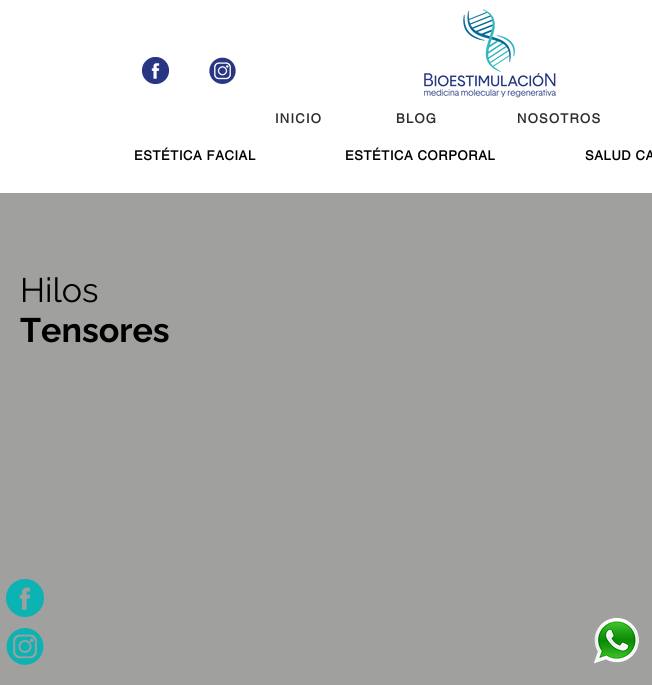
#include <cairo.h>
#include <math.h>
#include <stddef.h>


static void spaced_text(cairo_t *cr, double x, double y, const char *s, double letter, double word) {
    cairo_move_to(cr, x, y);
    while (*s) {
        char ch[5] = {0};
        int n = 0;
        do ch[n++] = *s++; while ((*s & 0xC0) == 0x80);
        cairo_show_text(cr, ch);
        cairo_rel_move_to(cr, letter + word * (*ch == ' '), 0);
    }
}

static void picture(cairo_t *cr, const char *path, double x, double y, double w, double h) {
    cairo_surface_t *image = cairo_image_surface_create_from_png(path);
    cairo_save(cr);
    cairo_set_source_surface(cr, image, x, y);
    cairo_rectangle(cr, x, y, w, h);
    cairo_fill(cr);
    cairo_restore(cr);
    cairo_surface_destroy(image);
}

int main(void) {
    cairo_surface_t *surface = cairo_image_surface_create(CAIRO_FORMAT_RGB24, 652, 685);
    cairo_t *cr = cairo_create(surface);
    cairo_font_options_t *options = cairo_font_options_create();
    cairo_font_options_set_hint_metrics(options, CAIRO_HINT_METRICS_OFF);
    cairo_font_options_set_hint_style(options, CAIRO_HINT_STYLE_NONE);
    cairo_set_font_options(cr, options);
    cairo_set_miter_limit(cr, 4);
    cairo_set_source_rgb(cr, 1, 1, 1);
    cairo_paint(cr);
    picture(cr, "img1.png", 142, 57, 27, 27);
    picture(cr, "img2.png", 209, 57, 27, 27);
    picture(cr, "img3.png", 424, 9, 132, 89);
    cairo_select_font_face(cr, "helvetica", CAIRO_FONT_SLANT_NORMAL, CAIRO_FONT_WEIGHT_BOLD);
    cairo_set_font_size(cr, 13);
    cairo_set_source_rgb(cr, 0.184, 0.18, 0.18);
    spaced_text(cr, 275, 123, "INICIO", 1.25, 0);
    spaced_text(cr, 396, 123, "BLOG", 1.25, 0);
    spaced_text(cr, 517, 123, "NOSOTROS", 1.25, 0);
    cairo_set_source_rgb(cr, 0, 0, 0);
    spaced_text(cr, 134, 160, "ESTÉTICA FACIAL", 0.6, 0);
    spaced_text(cr, 345, 160, "ESTÉTICA CORPORAL", 0.6, 0);
    spaced_text(cr, 585, 160, "SALUD CA", 0.6, 0);
    cairo_set_source_rgb(cr, 0.627, 0.627, 0.624);
    cairo_rectangle(cr, 0, 193, 652, 492);
    cairo_fill(cr);
    cairo_select_font_face(cr, "Raleway", CAIRO_FONT_SLANT_NORMAL, CAIRO_FONT_WEIGHT_NORMAL);
    cairo_set_font_size(cr, 34);
    cairo_set_source_rgb(cr, 0, 0, 0);
    cairo_move_to(cr, 20, 302);
    cairo_show_text(cr, "Hilos");
    cairo_select_font_face(cr, "Raleway", CAIRO_FONT_SLANT_NORMAL, CAIRO_FONT_WEIGHT_BOLD);
    cairo_move_to(cr, 20, 342);
    cairo_show_text(cr, "Tensores");
    picture(cr, "img4.png", 6, 579, 38, 38);
    picture(cr, "img5.png", 6, 627, 38, 38);
    picture(cr, "img6.png", 593, 617, 47, 47);
    cairo_surface_write_to_png(surface, "page.png");
    cairo_font_options_destroy(options);
    cairo_destroy(cr);
    cairo_surface_destroy(surface);
    return 0;
}
